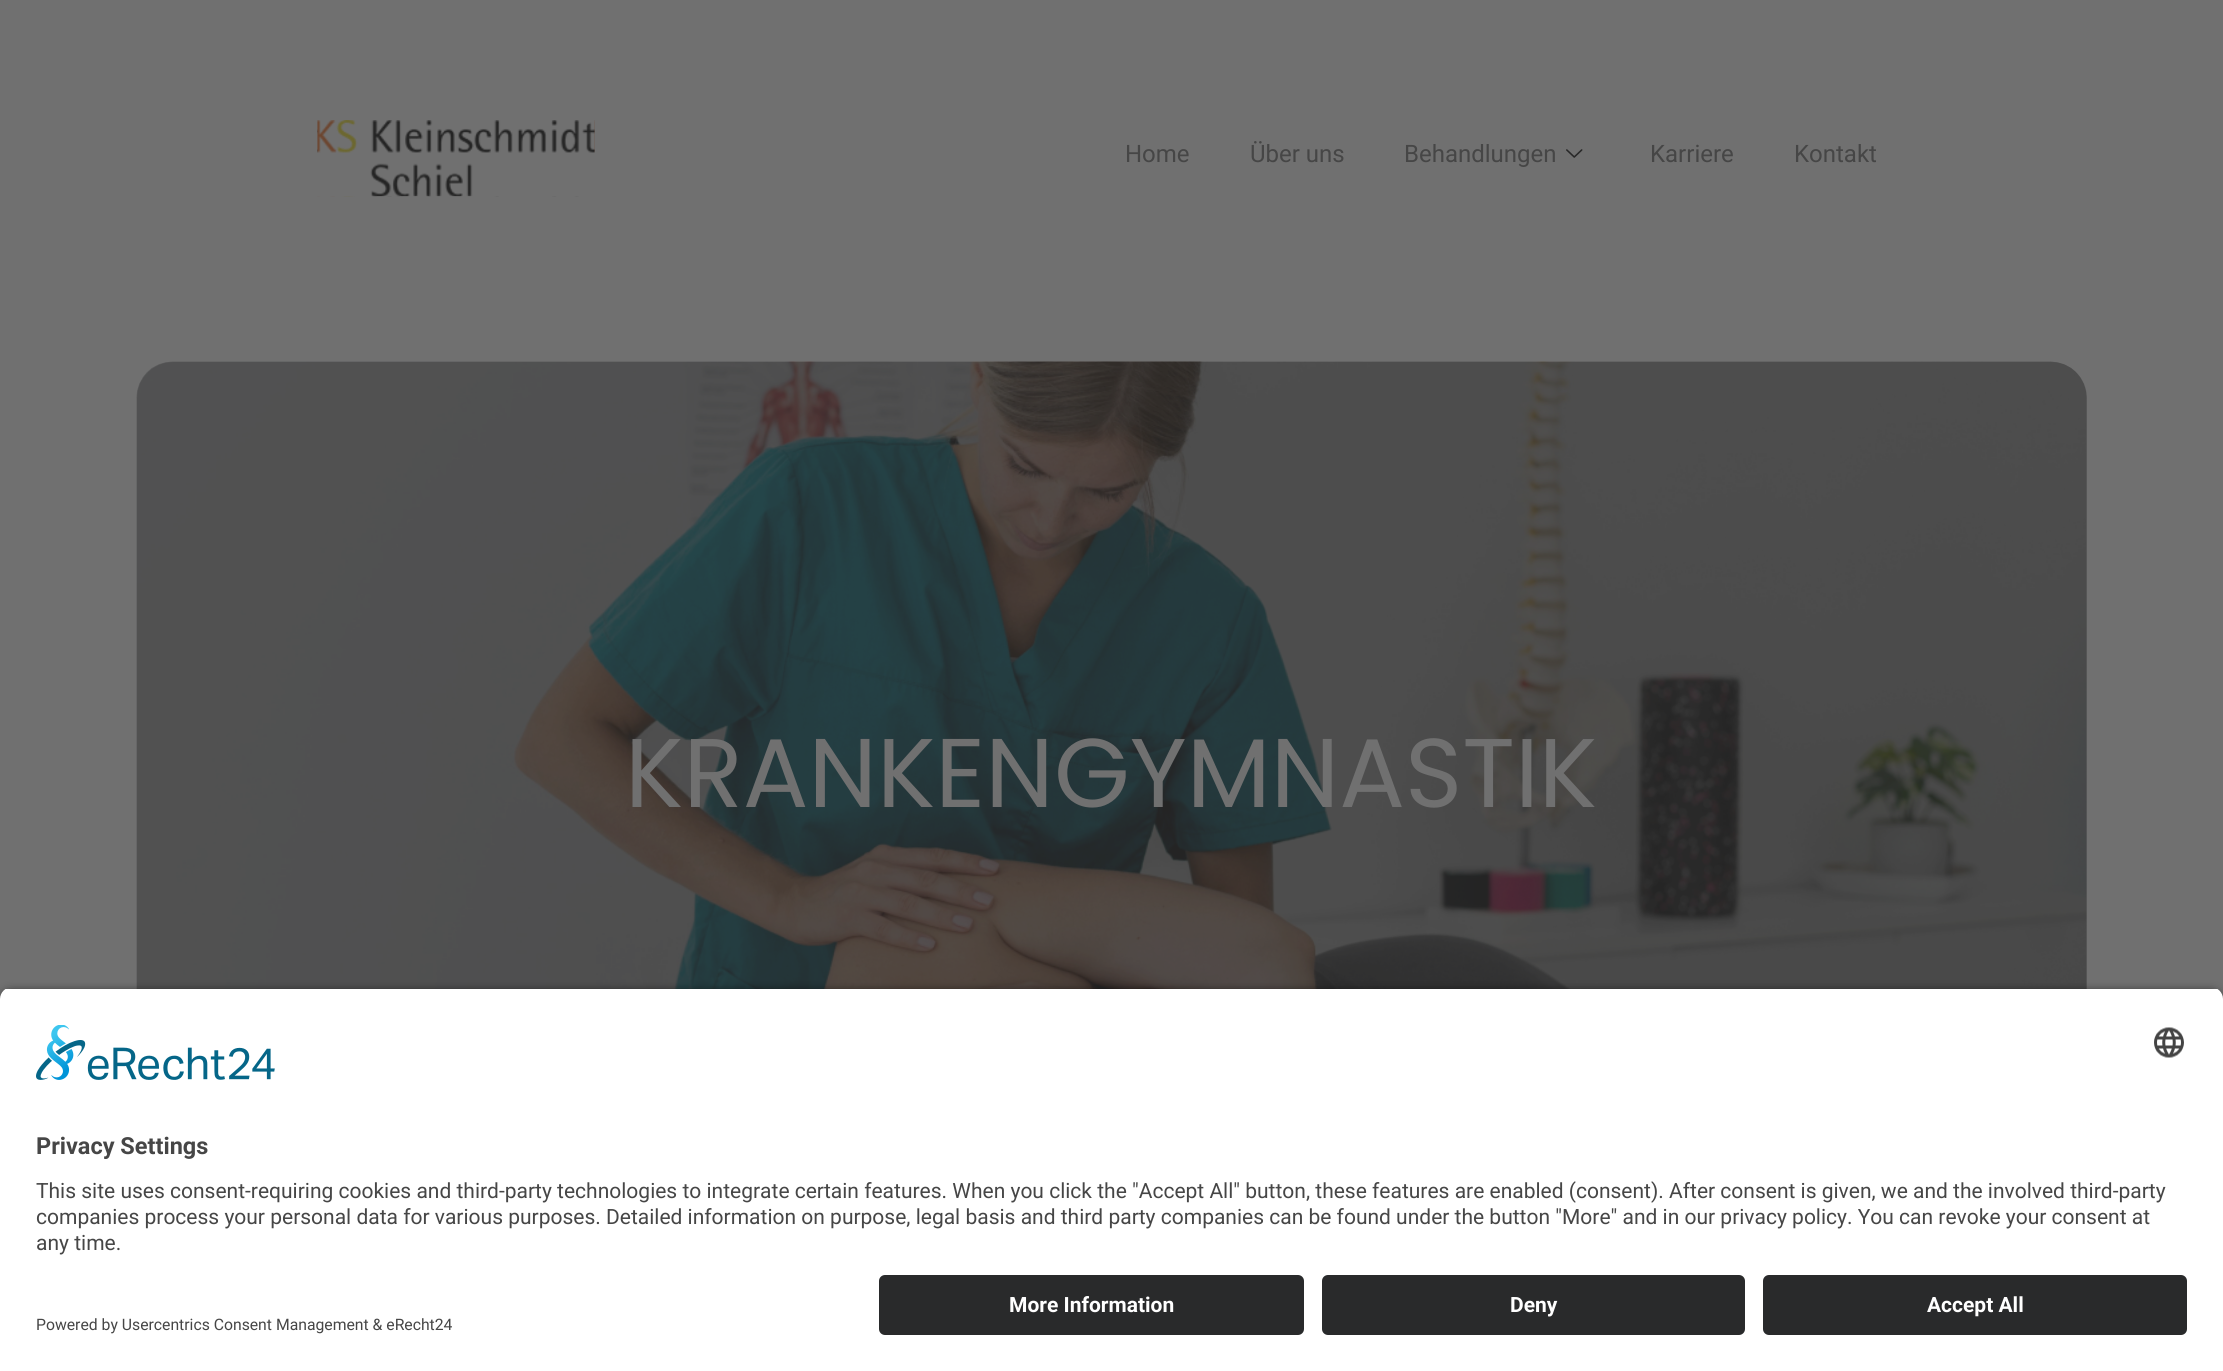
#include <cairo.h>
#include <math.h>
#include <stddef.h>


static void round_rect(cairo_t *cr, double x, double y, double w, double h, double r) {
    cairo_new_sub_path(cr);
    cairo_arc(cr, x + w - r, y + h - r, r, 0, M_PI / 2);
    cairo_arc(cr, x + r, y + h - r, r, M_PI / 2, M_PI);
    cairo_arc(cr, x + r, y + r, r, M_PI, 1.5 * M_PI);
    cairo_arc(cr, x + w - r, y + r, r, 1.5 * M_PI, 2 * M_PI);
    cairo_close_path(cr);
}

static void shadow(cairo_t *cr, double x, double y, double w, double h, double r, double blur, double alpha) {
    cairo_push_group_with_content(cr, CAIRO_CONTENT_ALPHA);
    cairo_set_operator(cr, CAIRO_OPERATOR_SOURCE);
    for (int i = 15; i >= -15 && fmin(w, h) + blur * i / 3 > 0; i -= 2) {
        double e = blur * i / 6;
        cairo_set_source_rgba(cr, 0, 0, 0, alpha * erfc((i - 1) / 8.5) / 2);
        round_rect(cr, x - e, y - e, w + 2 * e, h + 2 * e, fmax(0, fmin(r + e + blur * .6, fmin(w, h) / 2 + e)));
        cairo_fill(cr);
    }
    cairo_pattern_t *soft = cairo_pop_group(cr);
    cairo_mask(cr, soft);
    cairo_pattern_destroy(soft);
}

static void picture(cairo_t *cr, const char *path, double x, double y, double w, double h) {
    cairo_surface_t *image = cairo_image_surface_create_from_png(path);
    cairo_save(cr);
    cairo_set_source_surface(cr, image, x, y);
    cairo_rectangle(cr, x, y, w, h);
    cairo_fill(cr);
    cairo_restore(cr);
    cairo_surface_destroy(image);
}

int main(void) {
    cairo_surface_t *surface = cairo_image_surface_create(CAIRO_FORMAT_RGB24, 2223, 1371);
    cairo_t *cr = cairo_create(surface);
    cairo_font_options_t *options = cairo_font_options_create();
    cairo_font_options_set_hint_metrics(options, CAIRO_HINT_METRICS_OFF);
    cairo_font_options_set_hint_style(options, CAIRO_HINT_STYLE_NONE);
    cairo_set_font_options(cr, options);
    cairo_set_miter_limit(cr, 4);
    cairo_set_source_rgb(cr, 0.439, 0.439, 0.439);
    cairo_paint(cr);
    picture(cr, "img1.png", 317, 120, 278, 77);
    cairo_select_font_face(cr, "Roboto", CAIRO_FONT_SLANT_NORMAL, CAIRO_FONT_WEIGHT_NORMAL);
    cairo_set_font_size(cr, 24);
    cairo_set_source_rgb(cr, 0.275, 0.275, 0.275);
    cairo_move_to(cr, 1125, 162);
    cairo_show_text(cr, "Home");
    cairo_move_to(cr, 1250, 162);
    cairo_show_text(cr, "Über uns");
    cairo_move_to(cr, 1404, 162);
    cairo_show_text(cr, "Behandlungen");
    picture(cr, "img2.png", 1566, 149, 17, 9);
    cairo_move_to(cr, 1650, 162);
    cairo_show_text(cr, "Karriere");
    cairo_move_to(cr, 1794, 162);
    cairo_show_text(cr, "Kontakt");
    picture(cr, "img3.png", 136, 361, 1951, 628);
    cairo_set_source_rgba(cr, 0.141, 0.141, 0.141, 0.2);
    round_rect(cr, 137, 362, 1950, 825, 36);
    cairo_fill(cr);
    cairo_select_font_face(cr, "Poppins", CAIRO_FONT_SLANT_NORMAL, CAIRO_FONT_WEIGHT_NORMAL);
    cairo_set_font_size(cr, 97.5);
    cairo_set_source_rgb(cr, 0.439, 0.439, 0.439);
    cairo_move_to(cr, 625, 807);
    cairo_show_text(cr, "KRANKENGYMNASTIK");
    cairo_set_source_rgb(cr, 0, 0, 0);
    shadow(cr, 0, 992, 2223, 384, 12, 5, 0.8);
    cairo_save(cr);
    cairo_new_path(cr);
    cairo_move_to(cr, 12, 987);
    cairo_line_to(cr, 2211, 987);
    cairo_curve_to(cr, 2217.5, 987, 2223, 992.5, 2223, 999);
    cairo_line_to(cr, 2223, 1263);
    cairo_line_to(cr, 0, 1263);
    cairo_line_to(cr, 0, 999);
    cairo_curve_to(cr, 0, 992.5, 5.5, 987, 12, 987);
    cairo_close_path(cr);
    cairo_clip(cr);
    cairo_set_source_rgb(cr, 1, 1, 1);
    cairo_rectangle(cr, 0, 989, 2223, 274);
    cairo_fill(cr);
    cairo_restore(cr);
    picture(cr, "img4.png", 36, 1025, 239, 55);
    picture(cr, "img5.png", 2154, 1027, 30, 31);
    cairo_select_font_face(cr, "Roboto", CAIRO_FONT_SLANT_NORMAL, CAIRO_FONT_WEIGHT_BOLD);
    cairo_set_font_size(cr, 23.5);
    cairo_set_source_rgb(cr, 0.275, 0.275, 0.275);
    cairo_move_to(cr, 36, 1154);
    cairo_show_text(cr, "Privacy Settings");
    cairo_select_font_face(cr, "Roboto", CAIRO_FONT_SLANT_NORMAL, CAIRO_FONT_WEIGHT_NORMAL);
    cairo_set_font_size(cr, 21);
    cairo_move_to(cr, 36, 1198);
    cairo_show_text(cr, "This site uses consent-requiring cookies and third-party technologies to integrate certain features. When you click the \"Accept All\" button, these features are enabled (consent). After consent is given, we and the involved third-party");
    cairo_move_to(cr, 36, 1224);
    cairo_show_text(cr, "companies process your personal data for various purposes. Detailed information on purpose, legal basis and third party companies can be found under the button \"More\" and in our privacy policy. You can revoke your consent at");
    cairo_move_to(cr, 36, 1250);
    cairo_show_text(cr, "any time.");
    cairo_set_source_rgb(cr, 1, 1, 1);
    cairo_rectangle(cr, 0, 1263, 2223, 108);
    cairo_fill(cr);
    cairo_set_source_rgb(cr, 0.161, 0.165, 0.169);
    round_rect(cr, 879, 1275, 425, 60, 6);
    cairo_fill(cr);
    cairo_select_font_face(cr, "Roboto", CAIRO_FONT_SLANT_NORMAL, CAIRO_FONT_WEIGHT_BOLD);
    cairo_set_source_rgb(cr, 1, 1, 1);
    cairo_move_to(cr, 1009, 1312);
    cairo_show_text(cr, "More Information");
    cairo_set_source_rgb(cr, 0.161, 0.165, 0.169);
    round_rect(cr, 1322, 1275, 423, 60, 6);
    cairo_fill(cr);
    cairo_set_source_rgb(cr, 1, 1, 1);
    cairo_move_to(cr, 1510, 1312);
    cairo_show_text(cr, "Deny");
    cairo_set_source_rgb(cr, 0.161, 0.165, 0.169);
    round_rect(cr, 1763, 1275, 424, 60, 6);
    cairo_fill(cr);
    cairo_set_source_rgb(cr, 1, 1, 1);
    cairo_move_to(cr, 1927, 1312);
    cairo_show_text(cr, "Accept All");
    cairo_select_font_face(cr, "Roboto", CAIRO_FONT_SLANT_NORMAL, CAIRO_FONT_WEIGHT_NORMAL);
    cairo_set_font_size(cr, 15.75);
    cairo_set_source_rgb(cr, 0.275, 0.275, 0.275);
    cairo_move_to(cr, 36, 1330);
    cairo_show_text(cr, "Powered by Usercentrics Consent Management & eRecht24");
    cairo_surface_write_to_png(surface, "page.png");
    cairo_font_options_destroy(options);
    cairo_destroy(cr);
    cairo_surface_destroy(surface);
    return 0;
}
